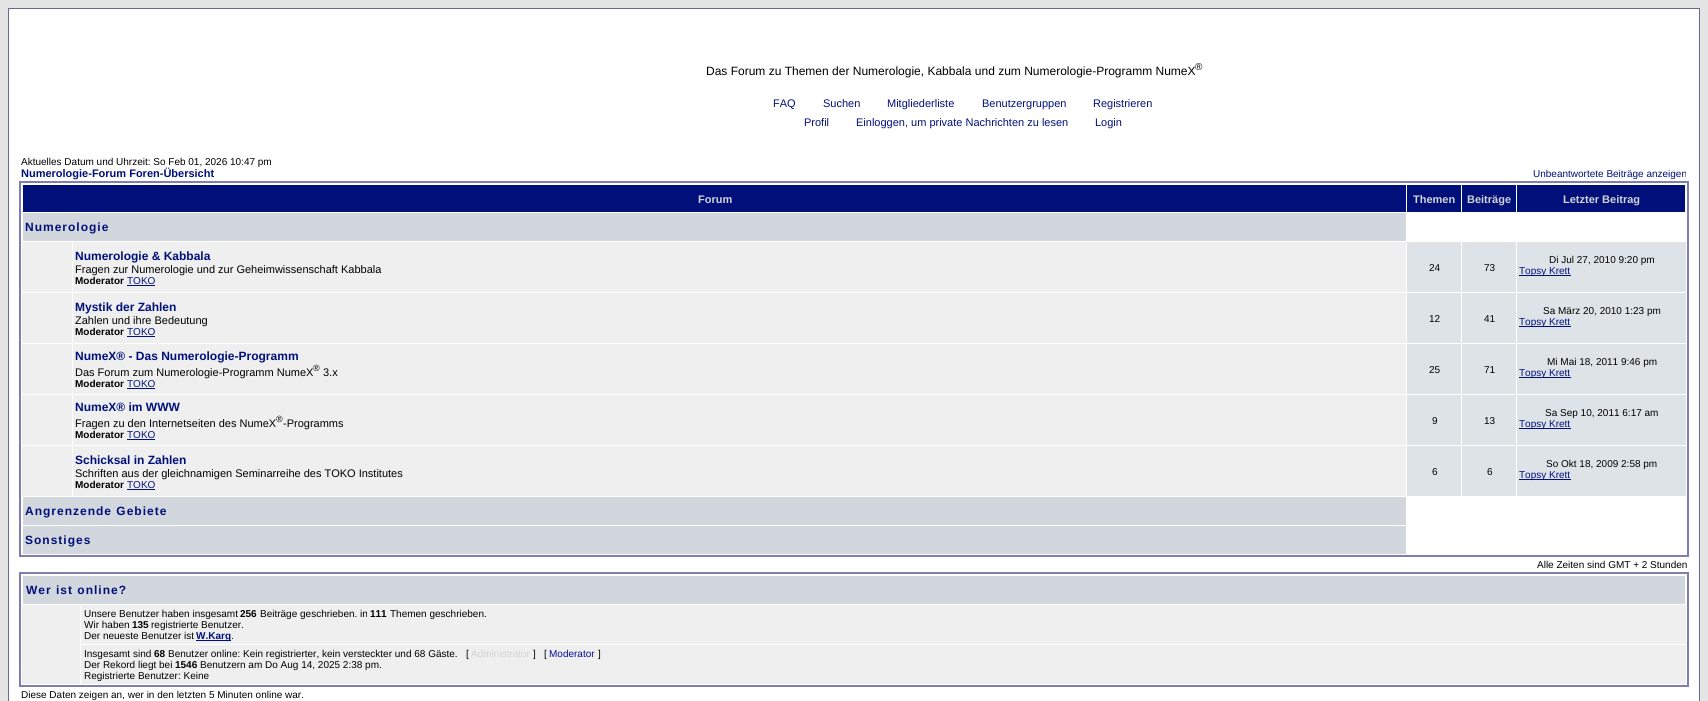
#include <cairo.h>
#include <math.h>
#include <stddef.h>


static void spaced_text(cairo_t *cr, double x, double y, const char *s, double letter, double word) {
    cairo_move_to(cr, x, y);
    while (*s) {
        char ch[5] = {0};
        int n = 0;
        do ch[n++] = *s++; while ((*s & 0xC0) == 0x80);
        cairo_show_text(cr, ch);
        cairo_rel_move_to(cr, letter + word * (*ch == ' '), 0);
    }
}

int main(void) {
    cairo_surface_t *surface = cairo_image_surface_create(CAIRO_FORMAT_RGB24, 1708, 701);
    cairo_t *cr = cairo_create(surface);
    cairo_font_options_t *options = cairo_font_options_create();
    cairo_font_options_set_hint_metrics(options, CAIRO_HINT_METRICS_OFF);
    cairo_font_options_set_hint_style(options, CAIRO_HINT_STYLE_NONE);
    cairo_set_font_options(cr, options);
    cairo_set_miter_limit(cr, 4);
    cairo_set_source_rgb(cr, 0.898, 0.898, 0.898);
    cairo_paint(cr);
    cairo_set_source_rgb(cr, 1, 1, 1);
    cairo_rectangle(cr, 8.5, 8.5, 1691, 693);
    cairo_fill_preserve(cr);
    cairo_set_source_rgb(cr, 0.404, 0.416, 0.616);
    cairo_set_line_width(cr, 1);
    cairo_stroke(cr);
    cairo_select_font_face(cr, "Liberation Sans", CAIRO_FONT_SLANT_NORMAL, CAIRO_FONT_WEIGHT_NORMAL);
    cairo_set_font_size(cr, 12);
    cairo_set_source_rgb(cr, 0, 0, 0);
    cairo_move_to(cr, 706, 75);
    cairo_show_text(cr, "Das Forum zu Themen der Numerologie, Kabbala und zum Numerologie-Programm NumeX");
    cairo_set_font_size(cr, 10);
    cairo_move_to(cr, 1195, 70);
    cairo_show_text(cr, "®");
    cairo_set_font_size(cr, 11);
    cairo_set_source_rgb(cr, 0, 0.063, 0.482);
    cairo_move_to(cr, 773, 107);
    cairo_show_text(cr, "FAQ");
    cairo_move_to(cr, 823, 107);
    cairo_show_text(cr, "Suchen");
    cairo_move_to(cr, 887, 107);
    cairo_show_text(cr, "Mitgliederliste");
    cairo_move_to(cr, 982, 107);
    cairo_show_text(cr, "Benutzergruppen");
    cairo_move_to(cr, 1093, 107);
    cairo_show_text(cr, "Registrieren");
    cairo_move_to(cr, 804, 126);
    cairo_show_text(cr, "Profil");
    cairo_move_to(cr, 856, 126);
    cairo_show_text(cr, "Einloggen, um private Nachrichten zu lesen");
    cairo_move_to(cr, 1095, 126);
    cairo_show_text(cr, "Login");
    cairo_set_font_size(cr, 10);
    cairo_set_source_rgb(cr, 0, 0, 0);
    cairo_move_to(cr, 21, 165);
    cairo_show_text(cr, "Aktuelles Datum und Uhrzeit: So Feb 01, 2026 10:47 pm");
    cairo_select_font_face(cr, "Liberation Sans", CAIRO_FONT_SLANT_NORMAL, CAIRO_FONT_WEIGHT_BOLD);
    cairo_set_font_size(cr, 11);
    cairo_set_source_rgb(cr, 0, 0.063, 0.482);
    cairo_move_to(cr, 21, 177);
    cairo_show_text(cr, "Numerologie-Forum Foren-Übersicht");
    cairo_select_font_face(cr, "Liberation Sans", CAIRO_FONT_SLANT_NORMAL, CAIRO_FONT_WEIGHT_NORMAL);
    cairo_set_font_size(cr, 10);
    cairo_move_to(cr, 1533, 177);
    cairo_show_text(cr, "Unbeantwortete Beiträge anzeigen");
    cairo_rectangle(cr, 20, 182, 1668, 374);
    cairo_set_source_rgb(cr, 0.494, 0.494, 0.694);
    cairo_set_line_width(cr, 2);
    cairo_stroke(cr);
    cairo_set_source_rgb(cr, 0, 0.063, 0.482);
    cairo_rectangle(cr, 23, 185, 1383, 27);
    cairo_fill(cr);
    cairo_select_font_face(cr, "Liberation Sans", CAIRO_FONT_SLANT_NORMAL, CAIRO_FONT_WEIGHT_BOLD);
    cairo_set_font_size(cr, 11);
    cairo_set_source_rgb(cr, 0.827, 0.827, 0.831);
    cairo_move_to(cr, 698, 203);
    cairo_show_text(cr, "Forum");
    cairo_set_source_rgb(cr, 0, 0.063, 0.482);
    cairo_rectangle(cr, 1407, 185, 54, 27);
    cairo_fill(cr);
    cairo_set_source_rgb(cr, 0.827, 0.827, 0.831);
    cairo_move_to(cr, 1413, 203);
    cairo_show_text(cr, "Themen");
    cairo_set_source_rgb(cr, 0, 0.063, 0.482);
    cairo_rectangle(cr, 1462, 185, 54, 27);
    cairo_fill(cr);
    cairo_set_source_rgb(cr, 0.827, 0.827, 0.831);
    cairo_move_to(cr, 1467, 203);
    cairo_show_text(cr, "Beiträge");
    cairo_set_source_rgb(cr, 0, 0.063, 0.482);
    cairo_rectangle(cr, 1517, 185, 168, 27);
    cairo_fill(cr);
    cairo_set_source_rgb(cr, 0.827, 0.827, 0.831);
    cairo_move_to(cr, 1563, 203);
    cairo_show_text(cr, "Letzter Beitrag");
    cairo_set_source_rgb(cr, 0.82, 0.843, 0.863);
    cairo_rectangle(cr, 23, 213, 1383, 28);
    cairo_fill(cr);
    cairo_set_font_size(cr, 12);
    cairo_set_source_rgb(cr, 0, 0.063, 0.482);
    spaced_text(cr, 25, 231, "Numerologie", 1, 0);
    cairo_set_source_rgb(cr, 0.937, 0.937, 0.937);
    cairo_rectangle(cr, 22, 242, 50, 50);
    cairo_fill(cr);
    cairo_rectangle(cr, 73, 242, 1333, 50);
    cairo_fill(cr);
    cairo_set_source_rgb(cr, 0, 0.063, 0.482);
    cairo_move_to(cr, 75, 260);
    cairo_show_text(cr, "Numerologie & Kabbala");
    cairo_select_font_face(cr, "Liberation Sans", CAIRO_FONT_SLANT_NORMAL, CAIRO_FONT_WEIGHT_NORMAL);
    cairo_set_font_size(cr, 11);
    cairo_set_source_rgb(cr, 0, 0, 0);
    cairo_move_to(cr, 75, 273);
    cairo_show_text(cr, "Fragen zur Numerologie und zur Geheimwissenschaft Kabbala");
    cairo_select_font_face(cr, "Liberation Sans", CAIRO_FONT_SLANT_NORMAL, CAIRO_FONT_WEIGHT_BOLD);
    cairo_set_font_size(cr, 10);
    cairo_move_to(cr, 75, 284);
    cairo_show_text(cr, "Moderator");
    cairo_select_font_face(cr, "Liberation Sans", CAIRO_FONT_SLANT_NORMAL, CAIRO_FONT_WEIGHT_NORMAL);
    cairo_set_source_rgb(cr, 0, 0.063, 0.482);
    cairo_move_to(cr, 127, 284);
    cairo_show_text(cr, "TOKO");
    cairo_rectangle(cr, 127, 285, 28, 1);
    cairo_fill(cr);
    cairo_set_source_rgb(cr, 0.871, 0.89, 0.906);
    cairo_rectangle(cr, 1407, 242, 54, 50);
    cairo_fill(cr);
    cairo_set_source_rgb(cr, 0, 0, 0);
    cairo_move_to(cr, 1429, 271);
    cairo_show_text(cr, "24");
    cairo_set_source_rgb(cr, 0.871, 0.89, 0.906);
    cairo_rectangle(cr, 1462, 242, 54, 50);
    cairo_fill(cr);
    cairo_set_source_rgb(cr, 0, 0, 0);
    cairo_move_to(cr, 1484, 271);
    cairo_show_text(cr, "73");
    cairo_set_source_rgb(cr, 0.871, 0.89, 0.906);
    cairo_rectangle(cr, 1517, 242, 169, 50);
    cairo_fill(cr);
    cairo_set_source_rgb(cr, 0, 0, 0);
    cairo_move_to(cr, 1549, 263);
    cairo_show_text(cr, "Di Jul 27, 2010 9:20 pm");
    cairo_set_source_rgb(cr, 0, 0.063, 0.482);
    cairo_rectangle(cr, 1519, 275, 52, 1);
    cairo_fill(cr);
    cairo_move_to(cr, 1519, 274);
    cairo_show_text(cr, "Topsy Krett");
    cairo_set_source_rgb(cr, 0.937, 0.937, 0.937);
    cairo_rectangle(cr, 22, 293, 50, 50);
    cairo_fill(cr);
    cairo_rectangle(cr, 73, 293, 1333, 50);
    cairo_fill(cr);
    cairo_select_font_face(cr, "Liberation Sans", CAIRO_FONT_SLANT_NORMAL, CAIRO_FONT_WEIGHT_BOLD);
    cairo_set_font_size(cr, 12);
    cairo_set_source_rgb(cr, 0, 0.063, 0.482);
    cairo_move_to(cr, 75, 311);
    cairo_show_text(cr, "Mystik der Zahlen");
    cairo_select_font_face(cr, "Liberation Sans", CAIRO_FONT_SLANT_NORMAL, CAIRO_FONT_WEIGHT_NORMAL);
    cairo_set_font_size(cr, 11);
    cairo_set_source_rgb(cr, 0, 0, 0);
    cairo_move_to(cr, 75, 324);
    cairo_show_text(cr, "Zahlen und ihre Bedeutung");
    cairo_select_font_face(cr, "Liberation Sans", CAIRO_FONT_SLANT_NORMAL, CAIRO_FONT_WEIGHT_BOLD);
    cairo_set_font_size(cr, 10);
    cairo_move_to(cr, 75, 335);
    cairo_show_text(cr, "Moderator");
    cairo_select_font_face(cr, "Liberation Sans", CAIRO_FONT_SLANT_NORMAL, CAIRO_FONT_WEIGHT_NORMAL);
    cairo_set_source_rgb(cr, 0, 0.063, 0.482);
    cairo_move_to(cr, 127, 335);
    cairo_show_text(cr, "TOKO");
    cairo_rectangle(cr, 127, 336, 28, 1);
    cairo_fill(cr);
    cairo_set_source_rgb(cr, 0.871, 0.89, 0.906);
    cairo_rectangle(cr, 1407, 293, 54, 50);
    cairo_fill(cr);
    cairo_set_source_rgb(cr, 0, 0, 0);
    cairo_move_to(cr, 1429, 322);
    cairo_show_text(cr, "12");
    cairo_set_source_rgb(cr, 0.871, 0.89, 0.906);
    cairo_rectangle(cr, 1462, 293, 54, 50);
    cairo_fill(cr);
    cairo_set_source_rgb(cr, 0, 0, 0);
    cairo_move_to(cr, 1484, 322);
    cairo_show_text(cr, "41");
    cairo_set_source_rgb(cr, 0.871, 0.89, 0.906);
    cairo_rectangle(cr, 1517, 293, 169, 50);
    cairo_fill(cr);
    cairo_set_source_rgb(cr, 0, 0, 0);
    cairo_move_to(cr, 1543, 314);
    cairo_show_text(cr, "Sa März 20, 2010 1:23 pm");
    cairo_set_source_rgb(cr, 0, 0.063, 0.482);
    cairo_rectangle(cr, 1519, 326, 52, 1);
    cairo_fill(cr);
    cairo_move_to(cr, 1519, 325);
    cairo_show_text(cr, "Topsy Krett");
    cairo_set_source_rgb(cr, 0.937, 0.937, 0.937);
    cairo_rectangle(cr, 22, 344, 50, 50);
    cairo_fill(cr);
    cairo_rectangle(cr, 73, 344, 1333, 50);
    cairo_fill(cr);
    cairo_select_font_face(cr, "Liberation Sans", CAIRO_FONT_SLANT_NORMAL, CAIRO_FONT_WEIGHT_BOLD);
    cairo_set_font_size(cr, 12);
    cairo_set_source_rgb(cr, 0, 0.063, 0.482);
    cairo_move_to(cr, 75, 360);
    cairo_show_text(cr, "NumeX® - Das Numerologie-Programm");
    cairo_select_font_face(cr, "Liberation Sans", CAIRO_FONT_SLANT_NORMAL, CAIRO_FONT_WEIGHT_NORMAL);
    cairo_set_font_size(cr, 11);
    cairo_set_source_rgb(cr, 0, 0, 0);
    cairo_move_to(cr, 75, 376);
    cairo_show_text(cr, "Das Forum zum Numerologie-Programm NumeX");
    cairo_set_font_size(cr, 9);
    cairo_move_to(cr, 313, 371);
    cairo_show_text(cr, "®");
    cairo_set_font_size(cr, 11);
    cairo_move_to(cr, 323, 376);
    cairo_show_text(cr, "3.x");
    cairo_select_font_face(cr, "Liberation Sans", CAIRO_FONT_SLANT_NORMAL, CAIRO_FONT_WEIGHT_BOLD);
    cairo_set_font_size(cr, 10);
    cairo_move_to(cr, 75, 387);
    cairo_show_text(cr, "Moderator");
    cairo_select_font_face(cr, "Liberation Sans", CAIRO_FONT_SLANT_NORMAL, CAIRO_FONT_WEIGHT_NORMAL);
    cairo_set_source_rgb(cr, 0, 0.063, 0.482);
    cairo_move_to(cr, 127, 387);
    cairo_show_text(cr, "TOKO");
    cairo_rectangle(cr, 127, 388, 28, 1);
    cairo_fill(cr);
    cairo_set_source_rgb(cr, 0.871, 0.89, 0.906);
    cairo_rectangle(cr, 1407, 344, 54, 50);
    cairo_fill(cr);
    cairo_set_source_rgb(cr, 0, 0, 0);
    cairo_move_to(cr, 1429, 373);
    cairo_show_text(cr, "25");
    cairo_set_source_rgb(cr, 0.871, 0.89, 0.906);
    cairo_rectangle(cr, 1462, 344, 54, 50);
    cairo_fill(cr);
    cairo_set_source_rgb(cr, 0, 0, 0);
    cairo_move_to(cr, 1484, 373);
    cairo_show_text(cr, "71");
    cairo_set_source_rgb(cr, 0.871, 0.89, 0.906);
    cairo_rectangle(cr, 1517, 344, 169, 50);
    cairo_fill(cr);
    cairo_set_source_rgb(cr, 0, 0, 0);
    cairo_move_to(cr, 1547, 365);
    cairo_show_text(cr, "Mi Mai 18, 2011 9:46 pm");
    cairo_set_source_rgb(cr, 0, 0.063, 0.482);
    cairo_rectangle(cr, 1519, 377, 52, 1);
    cairo_fill(cr);
    cairo_move_to(cr, 1519, 376);
    cairo_show_text(cr, "Topsy Krett");
    cairo_set_source_rgb(cr, 0.937, 0.937, 0.937);
    cairo_rectangle(cr, 22, 395, 50, 50);
    cairo_fill(cr);
    cairo_rectangle(cr, 73, 395, 1333, 50);
    cairo_fill(cr);
    cairo_select_font_face(cr, "Liberation Sans", CAIRO_FONT_SLANT_NORMAL, CAIRO_FONT_WEIGHT_BOLD);
    cairo_set_font_size(cr, 12);
    cairo_set_source_rgb(cr, 0, 0.063, 0.482);
    cairo_move_to(cr, 75, 411);
    cairo_show_text(cr, "NumeX® im WWW");
    cairo_select_font_face(cr, "Liberation Sans", CAIRO_FONT_SLANT_NORMAL, CAIRO_FONT_WEIGHT_NORMAL);
    cairo_set_font_size(cr, 11);
    cairo_set_source_rgb(cr, 0, 0, 0);
    cairo_move_to(cr, 75, 427);
    cairo_show_text(cr, "Fragen zu den Internetseiten des NumeX");
    cairo_set_font_size(cr, 9);
    cairo_move_to(cr, 276, 422);
    cairo_show_text(cr, "®");
    cairo_set_font_size(cr, 11);
    cairo_move_to(cr, 283, 427);
    cairo_show_text(cr, "-Programms");
    cairo_select_font_face(cr, "Liberation Sans", CAIRO_FONT_SLANT_NORMAL, CAIRO_FONT_WEIGHT_BOLD);
    cairo_set_font_size(cr, 10);
    cairo_move_to(cr, 75, 438);
    cairo_show_text(cr, "Moderator");
    cairo_select_font_face(cr, "Liberation Sans", CAIRO_FONT_SLANT_NORMAL, CAIRO_FONT_WEIGHT_NORMAL);
    cairo_set_source_rgb(cr, 0, 0.063, 0.482);
    cairo_move_to(cr, 127, 438);
    cairo_show_text(cr, "TOKO");
    cairo_rectangle(cr, 127, 439, 28, 1);
    cairo_fill(cr);
    cairo_set_source_rgb(cr, 0.871, 0.89, 0.906);
    cairo_rectangle(cr, 1407, 395, 54, 50);
    cairo_fill(cr);
    cairo_set_source_rgb(cr, 0, 0, 0);
    cairo_move_to(cr, 1432, 424);
    cairo_show_text(cr, "9");
    cairo_set_source_rgb(cr, 0.871, 0.89, 0.906);
    cairo_rectangle(cr, 1462, 395, 54, 50);
    cairo_fill(cr);
    cairo_set_source_rgb(cr, 0, 0, 0);
    cairo_move_to(cr, 1484, 424);
    cairo_show_text(cr, "13");
    cairo_set_source_rgb(cr, 0.871, 0.89, 0.906);
    cairo_rectangle(cr, 1517, 395, 169, 50);
    cairo_fill(cr);
    cairo_set_source_rgb(cr, 0, 0, 0);
    cairo_move_to(cr, 1545, 416);
    cairo_show_text(cr, "Sa Sep 10, 2011 6:17 am");
    cairo_set_source_rgb(cr, 0, 0.063, 0.482);
    cairo_rectangle(cr, 1519, 428, 52, 1);
    cairo_fill(cr);
    cairo_move_to(cr, 1519, 427);
    cairo_show_text(cr, "Topsy Krett");
    cairo_set_source_rgb(cr, 0.937, 0.937, 0.937);
    cairo_rectangle(cr, 22, 446, 50, 50);
    cairo_fill(cr);
    cairo_rectangle(cr, 73, 446, 1333, 50);
    cairo_fill(cr);
    cairo_select_font_face(cr, "Liberation Sans", CAIRO_FONT_SLANT_NORMAL, CAIRO_FONT_WEIGHT_BOLD);
    cairo_set_font_size(cr, 12);
    cairo_set_source_rgb(cr, 0, 0.063, 0.482);
    cairo_move_to(cr, 75, 464);
    cairo_show_text(cr, "Schicksal in Zahlen");
    cairo_select_font_face(cr, "Liberation Sans", CAIRO_FONT_SLANT_NORMAL, CAIRO_FONT_WEIGHT_NORMAL);
    cairo_set_font_size(cr, 11);
    cairo_set_source_rgb(cr, 0, 0, 0);
    cairo_move_to(cr, 75, 477);
    cairo_show_text(cr, "Schriften aus der gleichnamigen Seminarreihe des TOKO Institutes");
    cairo_select_font_face(cr, "Liberation Sans", CAIRO_FONT_SLANT_NORMAL, CAIRO_FONT_WEIGHT_BOLD);
    cairo_set_font_size(cr, 10);
    cairo_move_to(cr, 75, 488);
    cairo_show_text(cr, "Moderator");
    cairo_select_font_face(cr, "Liberation Sans", CAIRO_FONT_SLANT_NORMAL, CAIRO_FONT_WEIGHT_NORMAL);
    cairo_set_source_rgb(cr, 0, 0.063, 0.482);
    cairo_move_to(cr, 127, 488);
    cairo_show_text(cr, "TOKO");
    cairo_rectangle(cr, 127, 489, 28, 1);
    cairo_fill(cr);
    cairo_set_source_rgb(cr, 0.871, 0.89, 0.906);
    cairo_rectangle(cr, 1407, 446, 54, 50);
    cairo_fill(cr);
    cairo_set_source_rgb(cr, 0, 0, 0);
    cairo_move_to(cr, 1432, 475);
    cairo_show_text(cr, "6");
    cairo_set_source_rgb(cr, 0.871, 0.89, 0.906);
    cairo_rectangle(cr, 1462, 446, 54, 50);
    cairo_fill(cr);
    cairo_set_source_rgb(cr, 0, 0, 0);
    cairo_move_to(cr, 1487, 475);
    cairo_show_text(cr, "6");
    cairo_set_source_rgb(cr, 0.871, 0.89, 0.906);
    cairo_rectangle(cr, 1517, 446, 169, 50);
    cairo_fill(cr);
    cairo_set_source_rgb(cr, 0, 0, 0);
    cairo_move_to(cr, 1546, 467);
    cairo_show_text(cr, "So Okt 18, 2009 2:58 pm");
    cairo_set_source_rgb(cr, 0, 0.063, 0.482);
    cairo_rectangle(cr, 1519, 479, 52, 1);
    cairo_fill(cr);
    cairo_move_to(cr, 1519, 478);
    cairo_show_text(cr, "Topsy Krett");
    cairo_set_source_rgb(cr, 0.82, 0.843, 0.863);
    cairo_rectangle(cr, 23, 497, 1383, 28);
    cairo_fill(cr);
    cairo_select_font_face(cr, "Liberation Sans", CAIRO_FONT_SLANT_NORMAL, CAIRO_FONT_WEIGHT_BOLD);
    cairo_set_font_size(cr, 12);
    cairo_set_source_rgb(cr, 0, 0.063, 0.482);
    spaced_text(cr, 25, 515, "Angrenzende Gebiete", 1, 0);
    cairo_set_source_rgb(cr, 0.82, 0.843, 0.863);
    cairo_rectangle(cr, 23, 526, 1383, 28);
    cairo_fill(cr);
    cairo_set_source_rgb(cr, 0, 0.063, 0.482);
    spaced_text(cr, 25, 544, "Sonstiges", 1, 0);
    cairo_select_font_face(cr, "Liberation Sans", CAIRO_FONT_SLANT_NORMAL, CAIRO_FONT_WEIGHT_NORMAL);
    cairo_set_font_size(cr, 10);
    cairo_set_source_rgb(cr, 0, 0, 0);
    cairo_move_to(cr, 1537, 568);
    cairo_show_text(cr, "Alle Zeiten sind GMT + 2 Stunden");
    cairo_rectangle(cr, 20, 573, 1668, 113);
    cairo_set_source_rgb(cr, 0.494, 0.494, 0.694);
    cairo_stroke(cr);
    cairo_set_source_rgb(cr, 0.82, 0.843, 0.863);
    cairo_rectangle(cr, 23, 576, 1662, 28);
    cairo_fill(cr);
    cairo_select_font_face(cr, "Liberation Sans", CAIRO_FONT_SLANT_NORMAL, CAIRO_FONT_WEIGHT_BOLD);
    cairo_set_font_size(cr, 12);
    cairo_set_source_rgb(cr, 0, 0.063, 0.482);
    spaced_text(cr, 26, 594, "Wer ist online?", 1, 0);
    cairo_set_source_rgb(cr, 0.937, 0.937, 0.937);
    cairo_rectangle(cr, 22, 605, 58, 79);
    cairo_fill(cr);
    cairo_rectangle(cr, 81, 605, 1605, 39);
    cairo_fill(cr);
    cairo_select_font_face(cr, "Liberation Sans", CAIRO_FONT_SLANT_NORMAL, CAIRO_FONT_WEIGHT_NORMAL);
    cairo_set_font_size(cr, 10);
    cairo_set_source_rgb(cr, 0, 0, 0);
    cairo_move_to(cr, 84, 617);
    cairo_show_text(cr, "Unsere Benutzer haben insgesamt");
    cairo_select_font_face(cr, "Liberation Sans", CAIRO_FONT_SLANT_NORMAL, CAIRO_FONT_WEIGHT_BOLD);
    cairo_move_to(cr, 240, 617);
    cairo_show_text(cr, "256");
    cairo_select_font_face(cr, "Liberation Sans", CAIRO_FONT_SLANT_NORMAL, CAIRO_FONT_WEIGHT_NORMAL);
    cairo_move_to(cr, 260, 617);
    cairo_show_text(cr, "Beiträge geschrieben. in");
    cairo_select_font_face(cr, "Liberation Sans", CAIRO_FONT_SLANT_NORMAL, CAIRO_FONT_WEIGHT_BOLD);
    cairo_move_to(cr, 370, 617);
    cairo_show_text(cr, "111");
    cairo_select_font_face(cr, "Liberation Sans", CAIRO_FONT_SLANT_NORMAL, CAIRO_FONT_WEIGHT_NORMAL);
    cairo_move_to(cr, 390, 617);
    cairo_show_text(cr, "Themen geschrieben.");
    cairo_move_to(cr, 84, 628);
    cairo_show_text(cr, "Wir haben");
    cairo_select_font_face(cr, "Liberation Sans", CAIRO_FONT_SLANT_NORMAL, CAIRO_FONT_WEIGHT_BOLD);
    cairo_move_to(cr, 132, 628);
    cairo_show_text(cr, "135");
    cairo_select_font_face(cr, "Liberation Sans", CAIRO_FONT_SLANT_NORMAL, CAIRO_FONT_WEIGHT_NORMAL);
    cairo_move_to(cr, 151, 628);
    cairo_show_text(cr, "registrierte Benutzer.");
    cairo_move_to(cr, 84, 639);
    cairo_show_text(cr, "Der neueste Benutzer ist");
    cairo_set_source_rgb(cr, 0, 0.063, 0.482);
    cairo_rectangle(cr, 196, 640, 35, 1);
    cairo_fill(cr);
    cairo_select_font_face(cr, "Liberation Sans", CAIRO_FONT_SLANT_NORMAL, CAIRO_FONT_WEIGHT_BOLD);
    cairo_move_to(cr, 196, 639);
    cairo_show_text(cr, "W.Karg");
    cairo_select_font_face(cr, "Liberation Sans", CAIRO_FONT_SLANT_NORMAL, CAIRO_FONT_WEIGHT_NORMAL);
    cairo_set_source_rgb(cr, 0, 0, 0);
    cairo_move_to(cr, 231, 639);
    cairo_show_text(cr, ".");
    cairo_set_source_rgb(cr, 0.937, 0.937, 0.937);
    cairo_rectangle(cr, 81, 645, 1605, 39);
    cairo_fill(cr);
    cairo_set_source_rgb(cr, 0, 0, 0);
    cairo_move_to(cr, 84, 657);
    cairo_show_text(cr, "Insgesamt sind");
    cairo_select_font_face(cr, "Liberation Sans", CAIRO_FONT_SLANT_NORMAL, CAIRO_FONT_WEIGHT_BOLD);
    cairo_move_to(cr, 154, 657);
    cairo_show_text(cr, "68");
    cairo_select_font_face(cr, "Liberation Sans", CAIRO_FONT_SLANT_NORMAL, CAIRO_FONT_WEIGHT_NORMAL);
    cairo_move_to(cr, 168, 657);
    cairo_show_text(cr, "Benutzer online: Kein registrierter, kein versteckter und 68 Gäste.   [");
    cairo_set_source_rgb(cr, 0.827, 0.827, 0.831);
    cairo_move_to(cr, 471, 657);
    cairo_show_text(cr, "Administrator");
    cairo_set_source_rgb(cr, 0, 0, 0);
    cairo_move_to(cr, 533, 657);
    cairo_show_text(cr, "]   [");
    cairo_set_source_rgb(cr, 0.043, 0.055, 0.6);
    cairo_move_to(cr, 549, 657);
    cairo_show_text(cr, "Moderator");
    cairo_set_source_rgb(cr, 0, 0, 0);
    cairo_move_to(cr, 598, 657);
    cairo_show_text(cr, "]");
    cairo_move_to(cr, 84, 668);
    cairo_show_text(cr, "Der Rekord liegt bei");
    cairo_select_font_face(cr, "Liberation Sans", CAIRO_FONT_SLANT_NORMAL, CAIRO_FONT_WEIGHT_BOLD);
    cairo_move_to(cr, 175, 668);
    cairo_show_text(cr, "1546");
    cairo_select_font_face(cr, "Liberation Sans", CAIRO_FONT_SLANT_NORMAL, CAIRO_FONT_WEIGHT_NORMAL);
    cairo_move_to(cr, 200, 668);
    cairo_show_text(cr, "Benutzern am Do Aug 14, 2025 2:38 pm.");
    cairo_move_to(cr, 84, 679);
    cairo_show_text(cr, "Registrierte Benutzer: Keine");
    cairo_move_to(cr, 21, 698);
    cairo_show_text(cr, "Diese Daten zeigen an, wer in den letzten 5 Minuten online war.");
    cairo_surface_write_to_png(surface, "page.png");
    cairo_font_options_destroy(options);
    cairo_destroy(cr);
    cairo_surface_destroy(surface);
    return 0;
}
